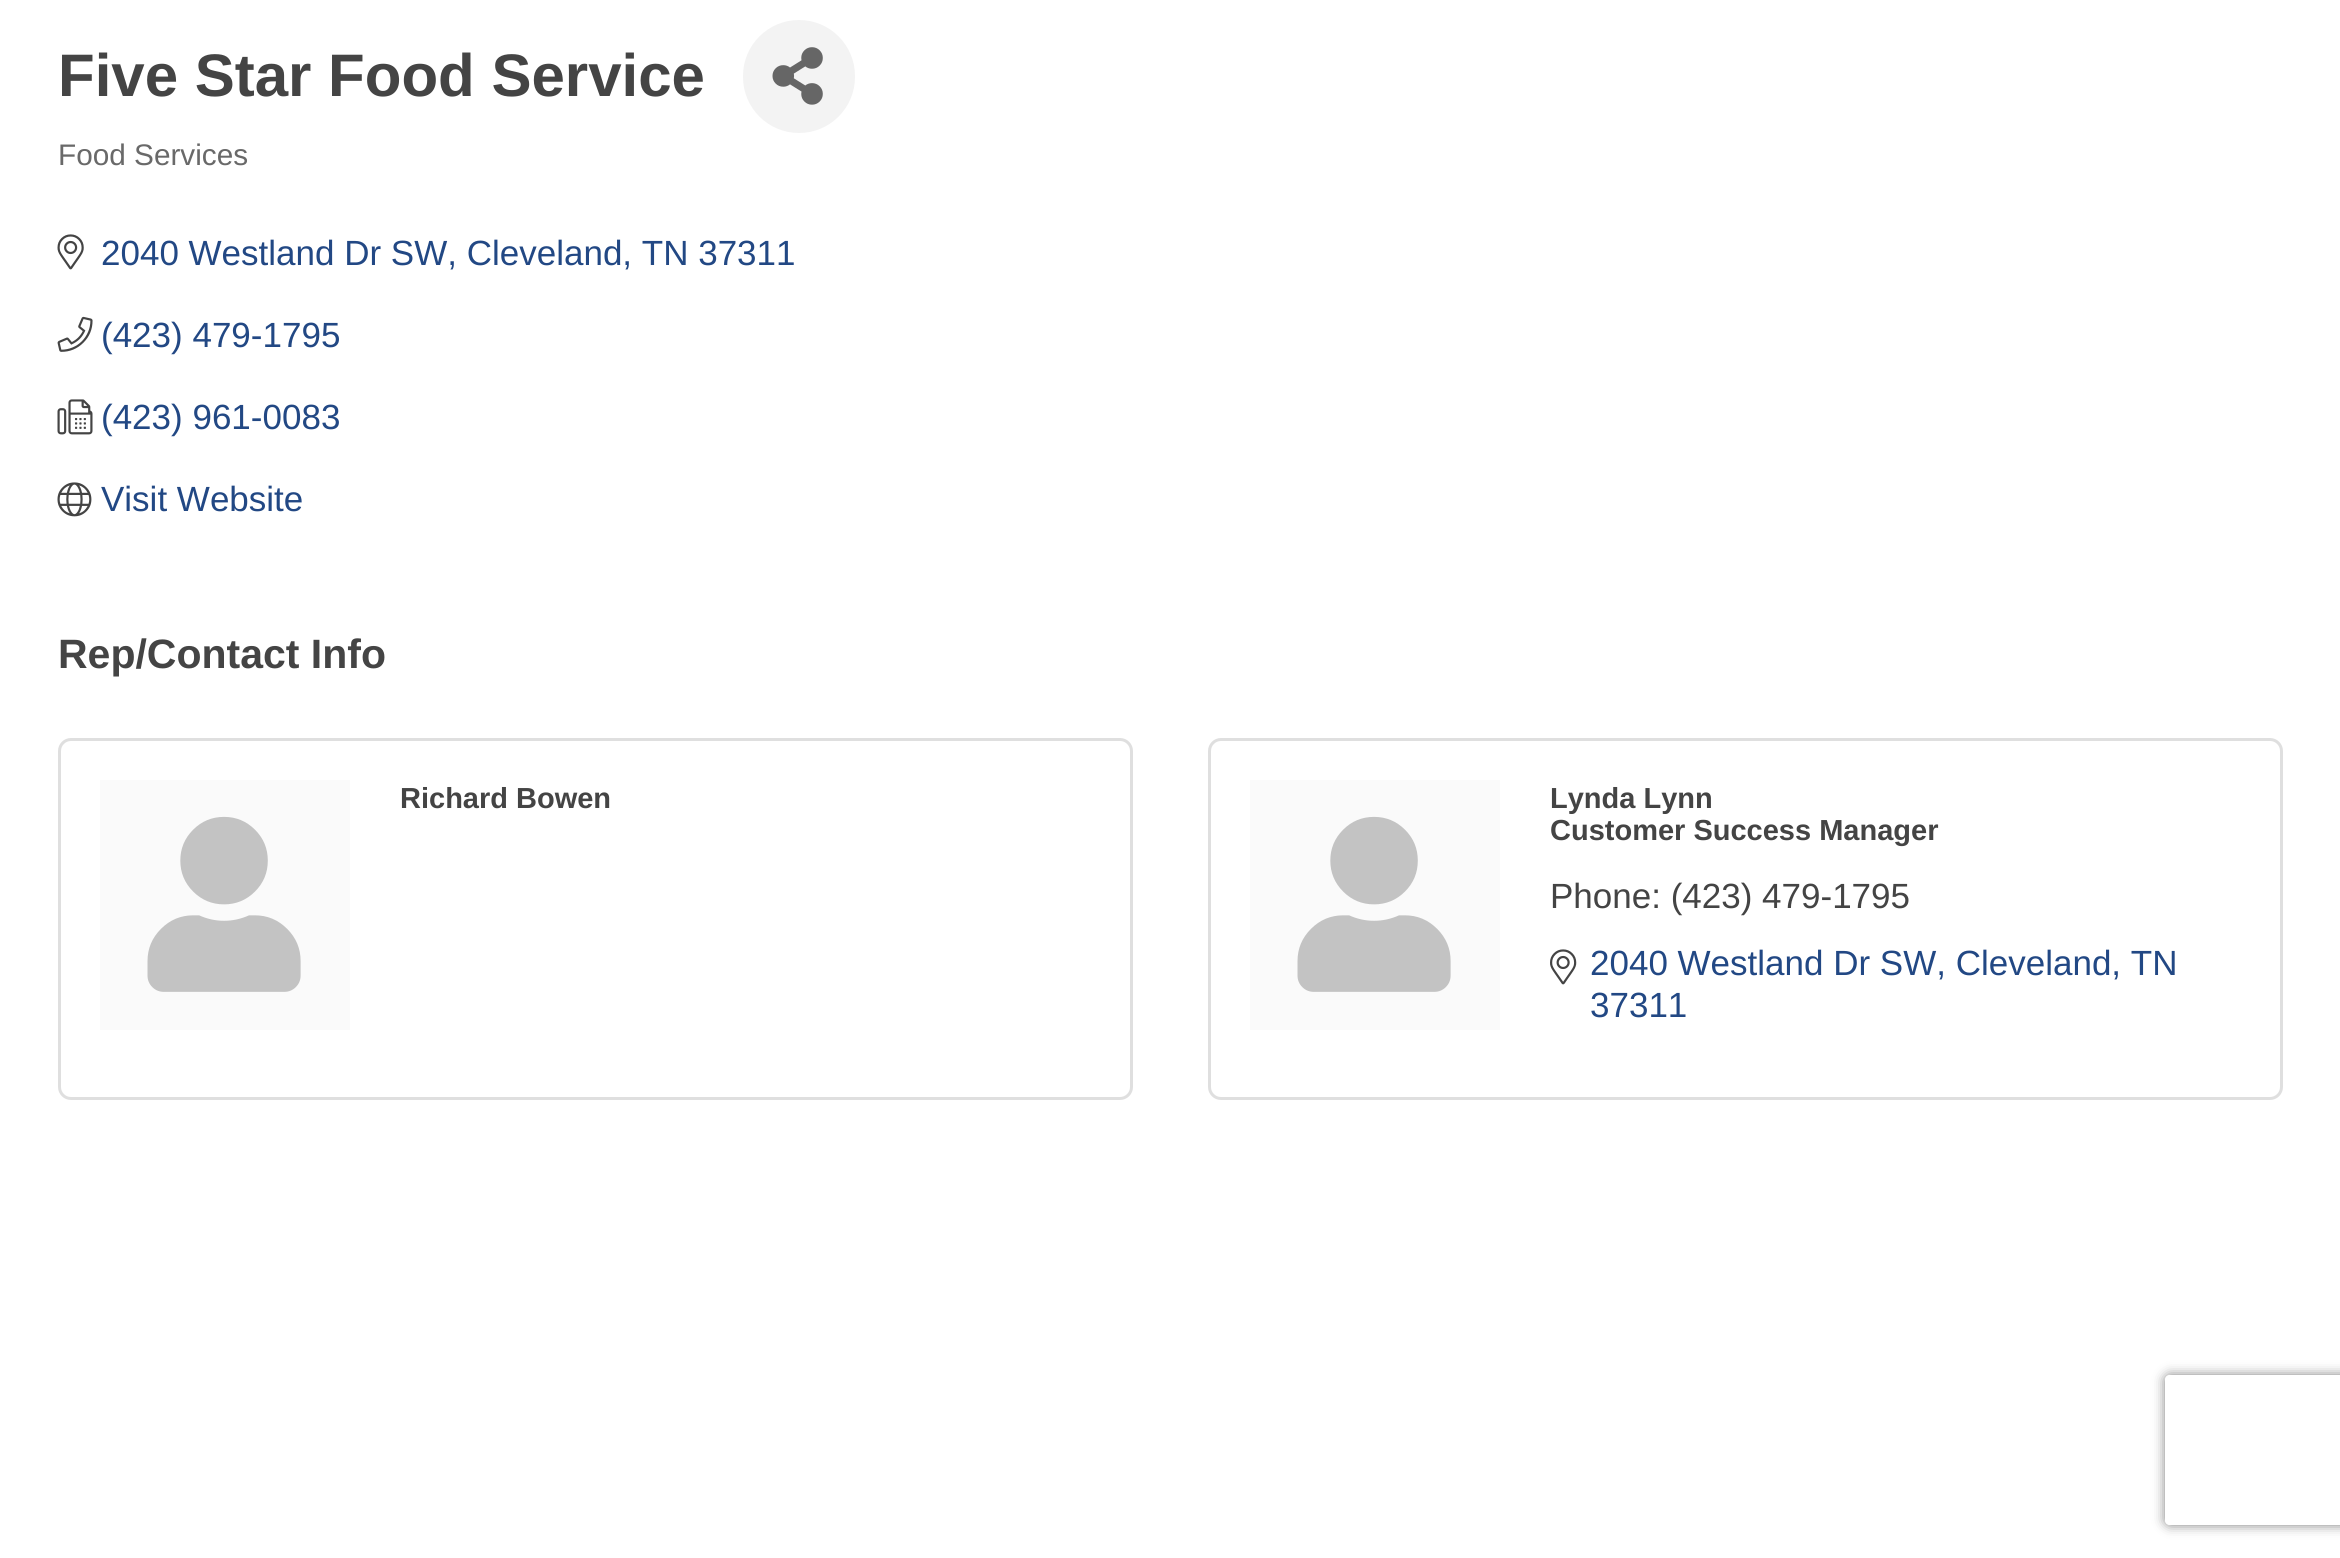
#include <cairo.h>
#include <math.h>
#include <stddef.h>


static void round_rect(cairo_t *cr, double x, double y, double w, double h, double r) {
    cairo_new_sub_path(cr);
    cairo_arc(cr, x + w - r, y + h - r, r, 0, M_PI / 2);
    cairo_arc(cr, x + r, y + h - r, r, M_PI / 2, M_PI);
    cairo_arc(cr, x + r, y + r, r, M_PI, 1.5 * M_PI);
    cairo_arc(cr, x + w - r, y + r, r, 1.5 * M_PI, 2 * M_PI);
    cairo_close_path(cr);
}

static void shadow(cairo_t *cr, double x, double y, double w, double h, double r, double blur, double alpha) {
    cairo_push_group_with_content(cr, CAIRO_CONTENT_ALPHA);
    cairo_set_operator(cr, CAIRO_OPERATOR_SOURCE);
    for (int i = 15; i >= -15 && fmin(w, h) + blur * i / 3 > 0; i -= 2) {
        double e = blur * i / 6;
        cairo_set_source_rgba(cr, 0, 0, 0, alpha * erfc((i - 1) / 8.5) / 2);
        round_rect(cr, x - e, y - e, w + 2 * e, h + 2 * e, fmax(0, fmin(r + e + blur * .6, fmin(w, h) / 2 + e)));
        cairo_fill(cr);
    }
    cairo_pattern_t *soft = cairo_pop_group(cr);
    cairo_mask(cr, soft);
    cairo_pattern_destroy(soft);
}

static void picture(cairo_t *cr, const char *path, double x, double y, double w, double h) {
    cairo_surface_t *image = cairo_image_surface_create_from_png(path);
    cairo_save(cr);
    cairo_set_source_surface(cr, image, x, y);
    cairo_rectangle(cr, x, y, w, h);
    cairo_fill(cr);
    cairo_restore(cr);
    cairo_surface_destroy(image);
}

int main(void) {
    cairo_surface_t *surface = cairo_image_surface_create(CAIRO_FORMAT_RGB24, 2340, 1558);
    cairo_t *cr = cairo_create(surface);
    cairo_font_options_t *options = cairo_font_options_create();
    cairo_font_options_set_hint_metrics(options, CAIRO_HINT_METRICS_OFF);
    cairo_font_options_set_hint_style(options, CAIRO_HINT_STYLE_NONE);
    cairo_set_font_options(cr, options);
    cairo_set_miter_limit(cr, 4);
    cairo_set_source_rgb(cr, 1, 1, 1);
    cairo_paint(cr);
    cairo_select_font_face(cr, "Liberation Sans", CAIRO_FONT_SLANT_NORMAL, CAIRO_FONT_WEIGHT_BOLD);
    cairo_set_font_size(cr, 60);
    cairo_set_source_rgb(cr, 0.267, 0.267, 0.267);
    cairo_move_to(cr, 58, 96);
    cairo_show_text(cr, "Five Star Food Service");
    cairo_set_source_rgb(cr, 0.953, 0.953, 0.953);
    round_rect(cr, 743, 20, 112, 113, 56);
    cairo_fill(cr);
    picture(cr, "img1.png", 772, 47, 51, 58);
    cairo_select_font_face(cr, "Liberation Sans", CAIRO_FONT_SLANT_NORMAL, CAIRO_FONT_WEIGHT_NORMAL);
    cairo_set_font_size(cr, 29.75);
    cairo_set_source_rgb(cr, 0.412, 0.412, 0.412);
    cairo_move_to(cr, 58, 165);
    cairo_show_text(cr, "Food Services");
    picture(cr, "img2.png", 57, 234, 27, 36);
    cairo_set_font_size(cr, 35);
    cairo_set_source_rgb(cr, 0.133, 0.282, 0.518);
    cairo_move_to(cr, 101, 265);
    cairo_show_text(cr, "2040 Westland Dr SW, Cleveland, TN 37311");
    picture(cr, "img3.png", 57, 316, 36, 36);
    cairo_move_to(cr, 101, 347);
    cairo_show_text(cr, "(423) 479-1795");
    picture(cr, "img4.png", 57, 399, 36, 36);
    cairo_move_to(cr, 101, 429);
    cairo_show_text(cr, "(423) 961-0083");
    picture(cr, "img5.png", 57, 482, 35, 35);
    cairo_move_to(cr, 101, 511);
    cairo_show_text(cr, "Visit Website");
    cairo_select_font_face(cr, "Liberation Sans", CAIRO_FONT_SLANT_NORMAL, CAIRO_FONT_WEIGHT_BOLD);
    cairo_set_font_size(cr, 41);
    cairo_set_source_rgb(cr, 0.267, 0.267, 0.267);
    cairo_move_to(cr, 58, 668);
    cairo_show_text(cr, "Rep/Contact Info");
    round_rect(cr, 59.5, 739.5, 1072, 359, 11.5);
    cairo_set_source_rgb(cr, 0.875, 0.875, 0.875);
    cairo_set_line_width(cr, 3);
    cairo_stroke(cr);
    cairo_set_source_rgb(cr, 0.98, 0.98, 0.98);
    cairo_rectangle(cr, 100, 780, 250, 250);
    cairo_fill(cr);
    picture(cr, "img6.png", 147, 816, 154, 176);
    cairo_set_font_size(cr, 29);
    cairo_set_source_rgb(cr, 0.267, 0.267, 0.267);
    cairo_move_to(cr, 400, 808);
    cairo_show_text(cr, "Richard Bowen");
    round_rect(cr, 1209.5, 739.5, 1072, 359, 11.5);
    cairo_set_source_rgb(cr, 0.875, 0.875, 0.875);
    cairo_stroke(cr);
    cairo_set_source_rgb(cr, 0.98, 0.98, 0.98);
    cairo_rectangle(cr, 1250, 780, 250, 250);
    cairo_fill(cr);
    picture(cr, "img6.png", 1297, 816, 154, 176);
    cairo_set_source_rgb(cr, 0.267, 0.267, 0.267);
    cairo_move_to(cr, 1550, 808);
    cairo_show_text(cr, "Lynda Lynn");
    cairo_move_to(cr, 1550, 840);
    cairo_show_text(cr, "Customer Success Manager");
    cairo_select_font_face(cr, "Liberation Sans", CAIRO_FONT_SLANT_NORMAL, CAIRO_FONT_WEIGHT_NORMAL);
    cairo_set_font_size(cr, 35);
    cairo_move_to(cr, 1550, 908);
    cairo_show_text(cr, "Phone: (423) 479-1795");
    picture(cr, "img7.png", 1550, 949, 27, 36);
    cairo_set_source_rgb(cr, 0.133, 0.282, 0.518);
    cairo_move_to(cr, 1590, 975);
    cairo_show_text(cr, "2040 Westland Dr SW, Cleveland, TN");
    cairo_move_to(cr, 1590, 1017);
    cairo_show_text(cr, "37311");
    cairo_save(cr);
    cairo_set_fill_rule(cr, CAIRO_FILL_RULE_EVEN_ODD);
    cairo_new_path(cr);
    cairo_move_to(cr, 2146, 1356);
    cairo_line_to(cr, 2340, 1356);
    cairo_line_to(cr, 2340, 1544);
    cairo_line_to(cr, 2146, 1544);
    cairo_close_path(cr);
    cairo_move_to(cr, 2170, 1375);
    cairo_line_to(cr, 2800, 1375);
    cairo_curve_to(cr, 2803, 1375, 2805, 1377, 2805, 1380);
    cairo_line_to(cr, 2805, 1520);
    cairo_curve_to(cr, 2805, 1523, 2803, 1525, 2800, 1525);
    cairo_line_to(cr, 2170, 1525);
    cairo_curve_to(cr, 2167, 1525, 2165, 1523, 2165, 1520);
    cairo_line_to(cr, 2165, 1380);
    cairo_curve_to(cr, 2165, 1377, 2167, 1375, 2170, 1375);
    cairo_close_path(cr);
    cairo_clip(cr);
    cairo_set_source_rgb(cr, 0.502, 0.502, 0.502);
    shadow(cr, 2165, 1375, 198, 150, 5, 6, 1);
    cairo_restore(cr);
    cairo_surface_write_to_png(surface, "page.png");
    cairo_font_options_destroy(options);
    cairo_destroy(cr);
    cairo_surface_destroy(surface);
    return 0;
}
